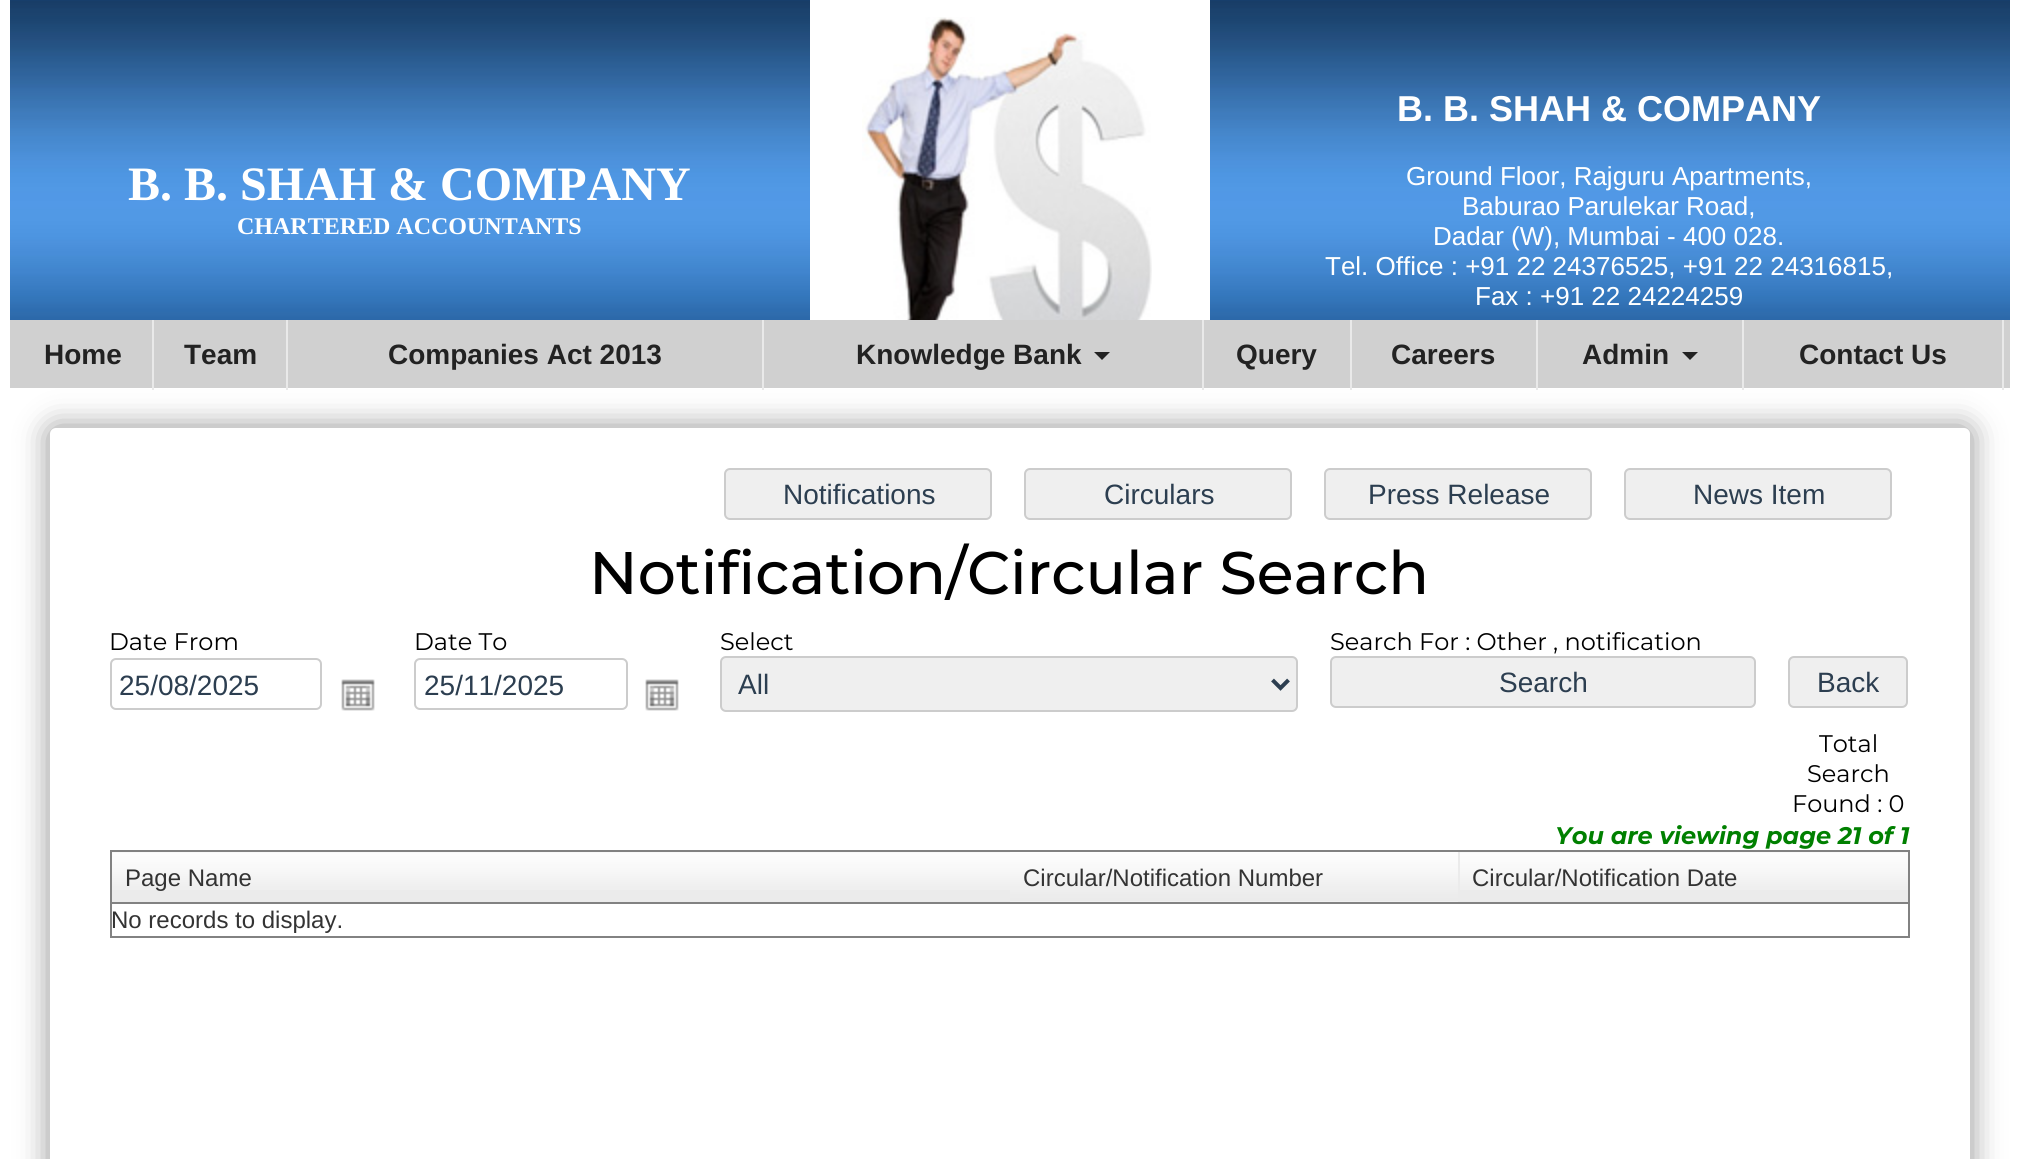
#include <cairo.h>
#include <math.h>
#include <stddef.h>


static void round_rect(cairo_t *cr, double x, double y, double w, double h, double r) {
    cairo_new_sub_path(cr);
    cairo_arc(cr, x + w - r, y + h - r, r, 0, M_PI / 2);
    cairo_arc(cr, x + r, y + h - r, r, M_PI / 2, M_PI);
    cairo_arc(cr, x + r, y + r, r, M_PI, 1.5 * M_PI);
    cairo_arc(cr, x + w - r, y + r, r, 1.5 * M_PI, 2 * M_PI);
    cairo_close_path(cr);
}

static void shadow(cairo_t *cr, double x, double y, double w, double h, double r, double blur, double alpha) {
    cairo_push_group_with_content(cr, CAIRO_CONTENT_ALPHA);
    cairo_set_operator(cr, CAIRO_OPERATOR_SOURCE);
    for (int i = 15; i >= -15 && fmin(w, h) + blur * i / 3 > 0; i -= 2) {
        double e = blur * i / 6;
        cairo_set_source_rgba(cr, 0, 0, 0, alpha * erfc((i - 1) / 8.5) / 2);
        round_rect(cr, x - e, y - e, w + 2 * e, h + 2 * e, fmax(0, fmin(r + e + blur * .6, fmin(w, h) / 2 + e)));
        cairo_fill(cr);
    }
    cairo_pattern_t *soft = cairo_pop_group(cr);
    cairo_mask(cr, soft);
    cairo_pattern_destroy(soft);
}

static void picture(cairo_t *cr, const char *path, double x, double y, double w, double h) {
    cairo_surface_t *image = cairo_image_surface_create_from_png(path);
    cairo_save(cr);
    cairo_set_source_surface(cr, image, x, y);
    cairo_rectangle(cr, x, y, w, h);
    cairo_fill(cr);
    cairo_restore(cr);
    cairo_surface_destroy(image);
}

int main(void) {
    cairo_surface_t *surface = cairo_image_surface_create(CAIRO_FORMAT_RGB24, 2017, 1159);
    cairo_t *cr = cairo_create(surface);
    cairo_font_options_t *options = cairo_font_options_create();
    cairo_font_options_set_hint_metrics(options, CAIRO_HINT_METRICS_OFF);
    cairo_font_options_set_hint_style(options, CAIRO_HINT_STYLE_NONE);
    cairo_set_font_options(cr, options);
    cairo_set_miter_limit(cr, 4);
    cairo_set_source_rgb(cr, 1, 1, 1);
    cairo_paint(cr);
    picture(cr, "img1.png", 10, 0, 800, 320);
    cairo_select_font_face(cr, "Liberation Serif", CAIRO_FONT_SLANT_NORMAL, CAIRO_FONT_WEIGHT_BOLD);
    cairo_set_font_size(cr, 48);
    cairo_set_source_rgb(cr, 1, 1, 1);
    cairo_move_to(cr, 128, 200);
    cairo_show_text(cr, "B. B. SHAH & COMPANY");
    cairo_set_font_size(cr, 24);
    cairo_move_to(cr, 237, 234);
    cairo_show_text(cr, "CHARTERED ACCOUNTANTS");
    picture(cr, "img2.png", 862, 17, 290, 303);
    picture(cr, "img1.png", 1210, 0, 800, 320);
    cairo_select_font_face(cr, "Liberation Sans", CAIRO_FONT_SLANT_NORMAL, CAIRO_FONT_WEIGHT_BOLD);
    cairo_set_font_size(cr, 36);
    cairo_move_to(cr, 1397, 121);
    cairo_show_text(cr, "B. B. SHAH & COMPANY");
    cairo_select_font_face(cr, "Liberation Sans", CAIRO_FONT_SLANT_NORMAL, CAIRO_FONT_WEIGHT_NORMAL);
    cairo_set_font_size(cr, 26);
    cairo_move_to(cr, 1406, 185);
    cairo_show_text(cr, "Ground Floor, Rajguru Apartments,");
    cairo_move_to(cr, 1462, 215);
    cairo_show_text(cr, "Baburao Parulekar Road,");
    cairo_move_to(cr, 1433, 245);
    cairo_show_text(cr, "Dadar (W), Mumbai - 400 028.");
    cairo_move_to(cr, 1325, 275);
    cairo_show_text(cr, "Tel. Office : +91 22 24376525, +91 22 24316815,");
    cairo_move_to(cr, 1475, 305);
    cairo_show_text(cr, "Fax : +91 22 24224259");
    cairo_set_source_rgb(cr, 0, 0, 0);
    shadow(cr, 48, 426, 1924, 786, 8, 15, 0.4);
    cairo_set_source_rgb(cr, 0.816, 0.816, 0.816);
    cairo_rectangle(cr, 10, 320, 2000, 68);
    cairo_fill(cr);
    cairo_set_source_rgb(cr, 0.914, 0.914, 0.914);
    cairo_rectangle(cr, 152, 320, 2, 70);
    cairo_fill(cr);
    cairo_select_font_face(cr, "Liberation Sans", CAIRO_FONT_SLANT_NORMAL, CAIRO_FONT_WEIGHT_BOLD);
    cairo_set_font_size(cr, 28);
    cairo_set_source_rgb(cr, 0.133, 0.133, 0.133);
    cairo_move_to(cr, 44, 364);
    cairo_show_text(cr, "Home");
    cairo_set_source_rgb(cr, 0.914, 0.914, 0.914);
    cairo_rectangle(cr, 286, 320, 2, 70);
    cairo_fill(cr);
    cairo_set_source_rgb(cr, 0.133, 0.133, 0.133);
    cairo_move_to(cr, 184, 364);
    cairo_show_text(cr, "Team");
    cairo_set_source_rgb(cr, 0.914, 0.914, 0.914);
    cairo_rectangle(cr, 762, 320, 2, 70);
    cairo_fill(cr);
    cairo_set_source_rgb(cr, 0.133, 0.133, 0.133);
    cairo_move_to(cr, 388, 364);
    cairo_show_text(cr, "Companies Act 2013");
    cairo_set_source_rgb(cr, 0.914, 0.914, 0.914);
    cairo_rectangle(cr, 1202, 320, 2, 70);
    cairo_fill(cr);
    cairo_set_source_rgb(cr, 0.133, 0.133, 0.133);
    cairo_move_to(cr, 856, 364);
    cairo_show_text(cr, "Knowledge Bank");
    cairo_new_path(cr);
    cairo_move_to(cr, 1094, 352);
    cairo_line_to(cr, 1110, 352);
    cairo_line_to(cr, 1102, 360);
    cairo_close_path(cr);
    cairo_fill(cr);
    cairo_set_source_rgb(cr, 0.914, 0.914, 0.914);
    cairo_rectangle(cr, 1350, 320, 2, 70);
    cairo_fill(cr);
    cairo_set_source_rgb(cr, 0.133, 0.133, 0.133);
    cairo_move_to(cr, 1236, 364);
    cairo_show_text(cr, "Query");
    cairo_set_source_rgb(cr, 0.914, 0.914, 0.914);
    cairo_rectangle(cr, 1536, 320, 2, 70);
    cairo_fill(cr);
    cairo_set_source_rgb(cr, 0.133, 0.133, 0.133);
    cairo_move_to(cr, 1391, 364);
    cairo_show_text(cr, "Careers");
    cairo_set_source_rgb(cr, 0.914, 0.914, 0.914);
    cairo_rectangle(cr, 1742, 320, 2, 70);
    cairo_fill(cr);
    cairo_set_source_rgb(cr, 0.133, 0.133, 0.133);
    cairo_move_to(cr, 1582, 364);
    cairo_show_text(cr, "Admin");
    cairo_new_path(cr);
    cairo_move_to(cr, 1682, 352);
    cairo_line_to(cr, 1698, 352);
    cairo_line_to(cr, 1690, 360);
    cairo_close_path(cr);
    cairo_fill(cr);
    cairo_set_source_rgb(cr, 0.914, 0.914, 0.914);
    cairo_rectangle(cr, 2002, 320, 2, 70);
    cairo_fill(cr);
    cairo_set_source_rgb(cr, 0.133, 0.133, 0.133);
    cairo_move_to(cr, 1799, 364);
    cairo_show_text(cr, "Contact Us");
    cairo_set_source_rgb(cr, 1, 1, 1);
    round_rect(cr, 50, 428, 1920, 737, 6);
    cairo_fill(cr);
    cairo_set_source_rgb(cr, 0.937, 0.937, 0.937);
    round_rect(cr, 725, 469, 266, 50, 5);
    cairo_fill_preserve(cr);
    cairo_set_source_rgb(cr, 0.8, 0.8, 0.8);
    cairo_stroke(cr);
    cairo_select_font_face(cr, "Liberation Sans", CAIRO_FONT_SLANT_NORMAL, CAIRO_FONT_WEIGHT_NORMAL);
    cairo_set_source_rgb(cr, 0.173, 0.243, 0.314);
    cairo_move_to(cr, 783, 504);
    cairo_show_text(cr, "Notifications");
    cairo_set_source_rgb(cr, 0.937, 0.937, 0.937);
    round_rect(cr, 1025, 469, 266, 50, 5);
    cairo_fill_preserve(cr);
    cairo_set_source_rgb(cr, 0.8, 0.8, 0.8);
    cairo_stroke(cr);
    cairo_set_source_rgb(cr, 0.173, 0.243, 0.314);
    cairo_move_to(cr, 1104, 504);
    cairo_show_text(cr, "Circulars");
    cairo_set_source_rgb(cr, 0.937, 0.937, 0.937);
    round_rect(cr, 1325, 469, 266, 50, 5);
    cairo_fill_preserve(cr);
    cairo_set_source_rgb(cr, 0.8, 0.8, 0.8);
    cairo_stroke(cr);
    cairo_set_source_rgb(cr, 0.173, 0.243, 0.314);
    cairo_move_to(cr, 1368, 504);
    cairo_show_text(cr, "Press Release");
    cairo_set_source_rgb(cr, 0.937, 0.937, 0.937);
    round_rect(cr, 1625, 469, 266, 50, 5);
    cairo_fill_preserve(cr);
    cairo_set_source_rgb(cr, 0.8, 0.8, 0.8);
    cairo_stroke(cr);
    cairo_set_source_rgb(cr, 0.173, 0.243, 0.314);
    cairo_move_to(cr, 1693, 504);
    cairo_show_text(cr, "News Item");
    cairo_select_font_face(cr, "Montserrat Medium", CAIRO_FONT_SLANT_NORMAL, CAIRO_FONT_WEIGHT_NORMAL);
    cairo_set_font_size(cr, 60);
    cairo_set_source_rgb(cr, 0, 0, 0);
    cairo_move_to(cr, 589, 594);
    cairo_show_text(cr, "Notification/Circular Search");
    cairo_select_font_face(cr, "Montserrat", CAIRO_FONT_SLANT_NORMAL, CAIRO_FONT_WEIGHT_NORMAL);
    cairo_set_font_size(cr, 24);
    cairo_move_to(cr, 109, 650);
    cairo_show_text(cr, "Date From");
    round_rect(cr, 111, 659, 210, 50, 5);
    cairo_set_source_rgb(cr, 0.8, 0.8, 0.8);
    cairo_stroke(cr);
    cairo_select_font_face(cr, "Liberation Sans", CAIRO_FONT_SLANT_NORMAL, CAIRO_FONT_WEIGHT_NORMAL);
    cairo_set_font_size(cr, 28);
    cairo_set_source_rgb(cr, 0.173, 0.243, 0.314);
    cairo_move_to(cr, 119, 695);
    cairo_show_text(cr, "25/08/2025");
    picture(cr, "img3.png", 341, 679, 34, 32);
    cairo_select_font_face(cr, "Montserrat", CAIRO_FONT_SLANT_NORMAL, CAIRO_FONT_WEIGHT_NORMAL);
    cairo_set_font_size(cr, 24);
    cairo_set_source_rgb(cr, 0, 0, 0);
    cairo_move_to(cr, 414, 650);
    cairo_show_text(cr, "Date To");
    round_rect(cr, 415, 659, 212, 50, 5);
    cairo_set_source_rgb(cr, 0.8, 0.8, 0.8);
    cairo_stroke(cr);
    cairo_select_font_face(cr, "Liberation Sans", CAIRO_FONT_SLANT_NORMAL, CAIRO_FONT_WEIGHT_NORMAL);
    cairo_set_font_size(cr, 28);
    cairo_set_source_rgb(cr, 0.173, 0.243, 0.314);
    cairo_move_to(cr, 424, 695);
    cairo_show_text(cr, "25/11/2025");
    picture(cr, "img3.png", 645, 679, 34, 32);
    cairo_select_font_face(cr, "Montserrat", CAIRO_FONT_SLANT_NORMAL, CAIRO_FONT_WEIGHT_NORMAL);
    cairo_set_font_size(cr, 24);
    cairo_set_source_rgb(cr, 0, 0, 0);
    cairo_move_to(cr, 720, 650);
    cairo_show_text(cr, "Select");
    cairo_set_source_rgb(cr, 0.937, 0.937, 0.937);
    round_rect(cr, 721, 657, 576, 54, 5);
    cairo_fill_preserve(cr);
    cairo_set_source_rgb(cr, 0.8, 0.8, 0.8);
    cairo_stroke(cr);
    cairo_new_path(cr);
    cairo_move_to(cr, 1272.5, 680);
    cairo_line_to(cr, 1280.5, 688);
    cairo_line_to(cr, 1288.5, 680);
    cairo_set_source_rgb(cr, 0.173, 0.243, 0.314);
    cairo_set_line_width(cr, 4);
    cairo_stroke(cr);
    cairo_select_font_face(cr, "Liberation Sans", CAIRO_FONT_SLANT_NORMAL, CAIRO_FONT_WEIGHT_NORMAL);
    cairo_set_font_size(cr, 28);
    cairo_move_to(cr, 738, 694);
    cairo_show_text(cr, "All");
    cairo_select_font_face(cr, "Montserrat", CAIRO_FONT_SLANT_NORMAL, CAIRO_FONT_WEIGHT_NORMAL);
    cairo_set_font_size(cr, 24);
    cairo_set_source_rgb(cr, 0, 0, 0);
    cairo_move_to(cr, 1330, 650);
    cairo_show_text(cr, "Search For : Other , notification");
    cairo_set_source_rgb(cr, 0.937, 0.937, 0.937);
    round_rect(cr, 1331, 657, 424, 50, 5);
    cairo_fill_preserve(cr);
    cairo_set_source_rgb(cr, 0.8, 0.8, 0.8);
    cairo_set_line_width(cr, 2);
    cairo_stroke(cr);
    cairo_select_font_face(cr, "Liberation Sans", CAIRO_FONT_SLANT_NORMAL, CAIRO_FONT_WEIGHT_NORMAL);
    cairo_set_font_size(cr, 28);
    cairo_set_source_rgb(cr, 0.173, 0.243, 0.314);
    cairo_move_to(cr, 1499, 692);
    cairo_show_text(cr, "Search");
    cairo_set_source_rgb(cr, 0.937, 0.937, 0.937);
    round_rect(cr, 1789, 657, 118, 50, 5);
    cairo_fill_preserve(cr);
    cairo_set_source_rgb(cr, 0.8, 0.8, 0.8);
    cairo_stroke(cr);
    cairo_set_source_rgb(cr, 0.173, 0.243, 0.314);
    cairo_move_to(cr, 1817, 692);
    cairo_show_text(cr, "Back");
    cairo_select_font_face(cr, "Montserrat", CAIRO_FONT_SLANT_NORMAL, CAIRO_FONT_WEIGHT_NORMAL);
    cairo_set_font_size(cr, 24);
    cairo_set_source_rgb(cr, 0, 0, 0);
    cairo_move_to(cr, 1819, 752);
    cairo_show_text(cr, "Total");
    cairo_move_to(cr, 1807, 782);
    cairo_show_text(cr, "Search");
    cairo_move_to(cr, 1792, 812);
    cairo_show_text(cr, "Found : 0");
    cairo_select_font_face(cr, "Montserrat", CAIRO_FONT_SLANT_ITALIC, CAIRO_FONT_WEIGHT_BOLD);
    cairo_set_source_rgb(cr, 0, 0.502, 0);
    cairo_move_to(cr, 1555, 844);
    cairo_show_text(cr, "You are viewing page 21 of 1");
    cairo_rectangle(cr, 111, 851, 1798, 86);
    cairo_set_source_rgb(cr, 0.51, 0.51, 0.51);
    cairo_stroke(cr);
    cairo_set_source_rgb(cr, 0.918, 0.918, 0.918);
    cairo_rectangle(cr, 112, 852, 898, 50);
    cairo_fill(cr);
    picture(cr, "img4.png", 112, 852, 898, 38);
    cairo_set_source_rgb(cr, 0.51, 0.51, 0.51);
    cairo_rectangle(cr, 112, 902, 1796, 2);
    cairo_fill(cr);
    cairo_select_font_face(cr, "Liberation Sans", CAIRO_FONT_SLANT_NORMAL, CAIRO_FONT_WEIGHT_NORMAL);
    cairo_set_source_rgb(cr, 0.2, 0.2, 0.2);
    cairo_move_to(cr, 125, 886);
    cairo_show_text(cr, "Page Name");
    picture(cr, "img5.png", 1010, 852, 448, 50);
    cairo_move_to(cr, 1023, 886);
    cairo_show_text(cr, "Circular/Notification Number");
    cairo_set_source_rgb(cr, 0.918, 0.918, 0.918);
    cairo_rectangle(cr, 1458, 852, 450, 50);
    cairo_fill(cr);
    picture(cr, "img6.png", 1460, 852, 448, 38);
    cairo_set_source_rgb(cr, 0.2, 0.2, 0.2);
    cairo_move_to(cr, 1472, 886);
    cairo_show_text(cr, "Circular/Notification Date");
    cairo_move_to(cr, 111, 928);
    cairo_show_text(cr, "No records to display.");
    cairo_surface_write_to_png(surface, "page.png");
    cairo_font_options_destroy(options);
    cairo_destroy(cr);
    cairo_surface_destroy(surface);
    return 0;
}
